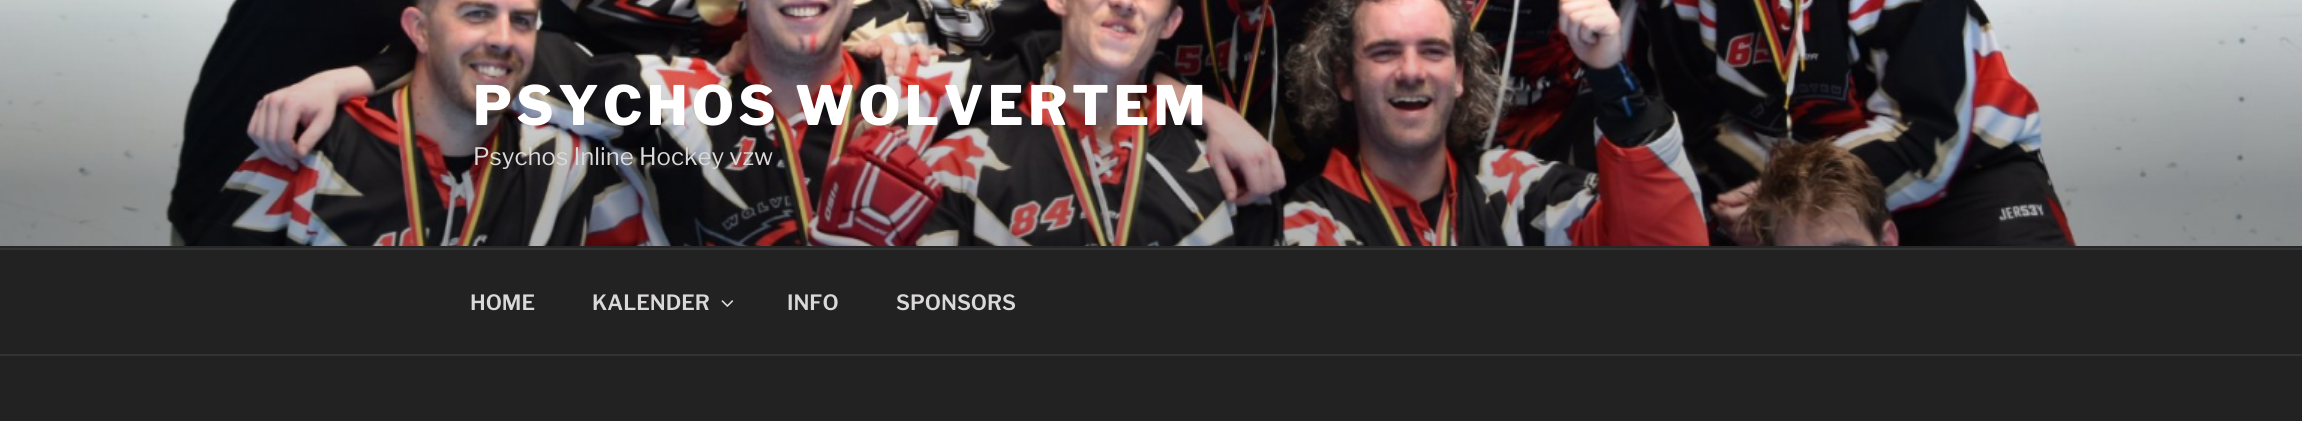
#include <cairo.h>
#include <math.h>
#include <stddef.h>


static void spaced_text(cairo_t *cr, double x, double y, const char *s, double letter, double word) {
    cairo_move_to(cr, x, y);
    while (*s) {
        char ch[5] = {0};
        int n = 0;
        do ch[n++] = *s++; while ((*s & 0xC0) == 0x80);
        cairo_show_text(cr, ch);
        cairo_rel_move_to(cr, letter + word * (*ch == ' '), 0);
    }
}

static void picture(cairo_t *cr, const char *path, double x, double y, double w, double h) {
    cairo_surface_t *image = cairo_image_surface_create_from_png(path);
    cairo_save(cr);
    cairo_set_source_surface(cr, image, x, y);
    cairo_rectangle(cr, x, y, w, h);
    cairo_fill(cr);
    cairo_restore(cr);
    cairo_surface_destroy(image);
}

int main(void) {
    cairo_surface_t *surface = cairo_image_surface_create(CAIRO_FORMAT_RGB24, 2302, 421);
    cairo_t *cr = cairo_create(surface);
    cairo_font_options_t *options = cairo_font_options_create();
    cairo_font_options_set_hint_metrics(options, CAIRO_HINT_METRICS_OFF);
    cairo_font_options_set_hint_style(options, CAIRO_HINT_STYLE_NONE);
    cairo_set_font_options(cr, options);
    cairo_set_miter_limit(cr, 4);
    cairo_set_source_rgb(cr, 0.133, 0.133, 0.133);
    cairo_paint(cr);
    cairo_set_source_rgb(cr, 0.149, 0.149, 0.149);
    cairo_rectangle(cr, 0, 246, 2302, 2);
    cairo_fill(cr);
    picture(cr, "img1.png", 0, 0, 2302, 246);
    cairo_select_font_face(cr, "Libre Franklin ExtraBold", CAIRO_FONT_SLANT_NORMAL, CAIRO_FONT_WEIGHT_NORMAL);
    cairo_set_font_size(cr, 54);
    cairo_set_source_rgb(cr, 1, 1, 1);
    spaced_text(cr, 473, 125, "PSYCHOS WOLVERTEM", 4.3, 0);
    cairo_select_font_face(cr, "Libre Franklin", CAIRO_FONT_SLANT_NORMAL, CAIRO_FONT_WEIGHT_NORMAL);
    cairo_set_font_size(cr, 24);
    cairo_set_source_rgb(cr, 0.855, 0.847, 0.851);
    cairo_move_to(cr, 473, 165);
    cairo_show_text(cr, "Psychos Inline Hockey vzw");
    cairo_set_source_rgb(cr, 0.2, 0.2, 0.2);
    cairo_rectangle(cr, 0, 248, 2302, 2);
    cairo_fill(cr);
    cairo_rectangle(cr, 0, 354, 2302, 2);
    cairo_fill(cr);
    cairo_select_font_face(cr, "Libre Franklin SemiBold", CAIRO_FONT_SLANT_NORMAL, CAIRO_FONT_WEIGHT_NORMAL);
    cairo_set_font_size(cr, 21);
    cairo_set_source_rgb(cr, 0.855, 0.847, 0.851);
    cairo_move_to(cr, 470, 310);
    cairo_show_text(cr, "HOME");
    cairo_move_to(cr, 592, 310);
    cairo_show_text(cr, "KALENDER");
    picture(cr, "img2.png", 721, 300, 13, 7);
    cairo_move_to(cr, 787, 310);
    cairo_show_text(cr, "INFO");
    cairo_move_to(cr, 896, 310);
    cairo_show_text(cr, "SPONSORS");
    cairo_surface_write_to_png(surface, "page.png");
    cairo_font_options_destroy(options);
    cairo_destroy(cr);
    cairo_surface_destroy(surface);
    return 0;
}
